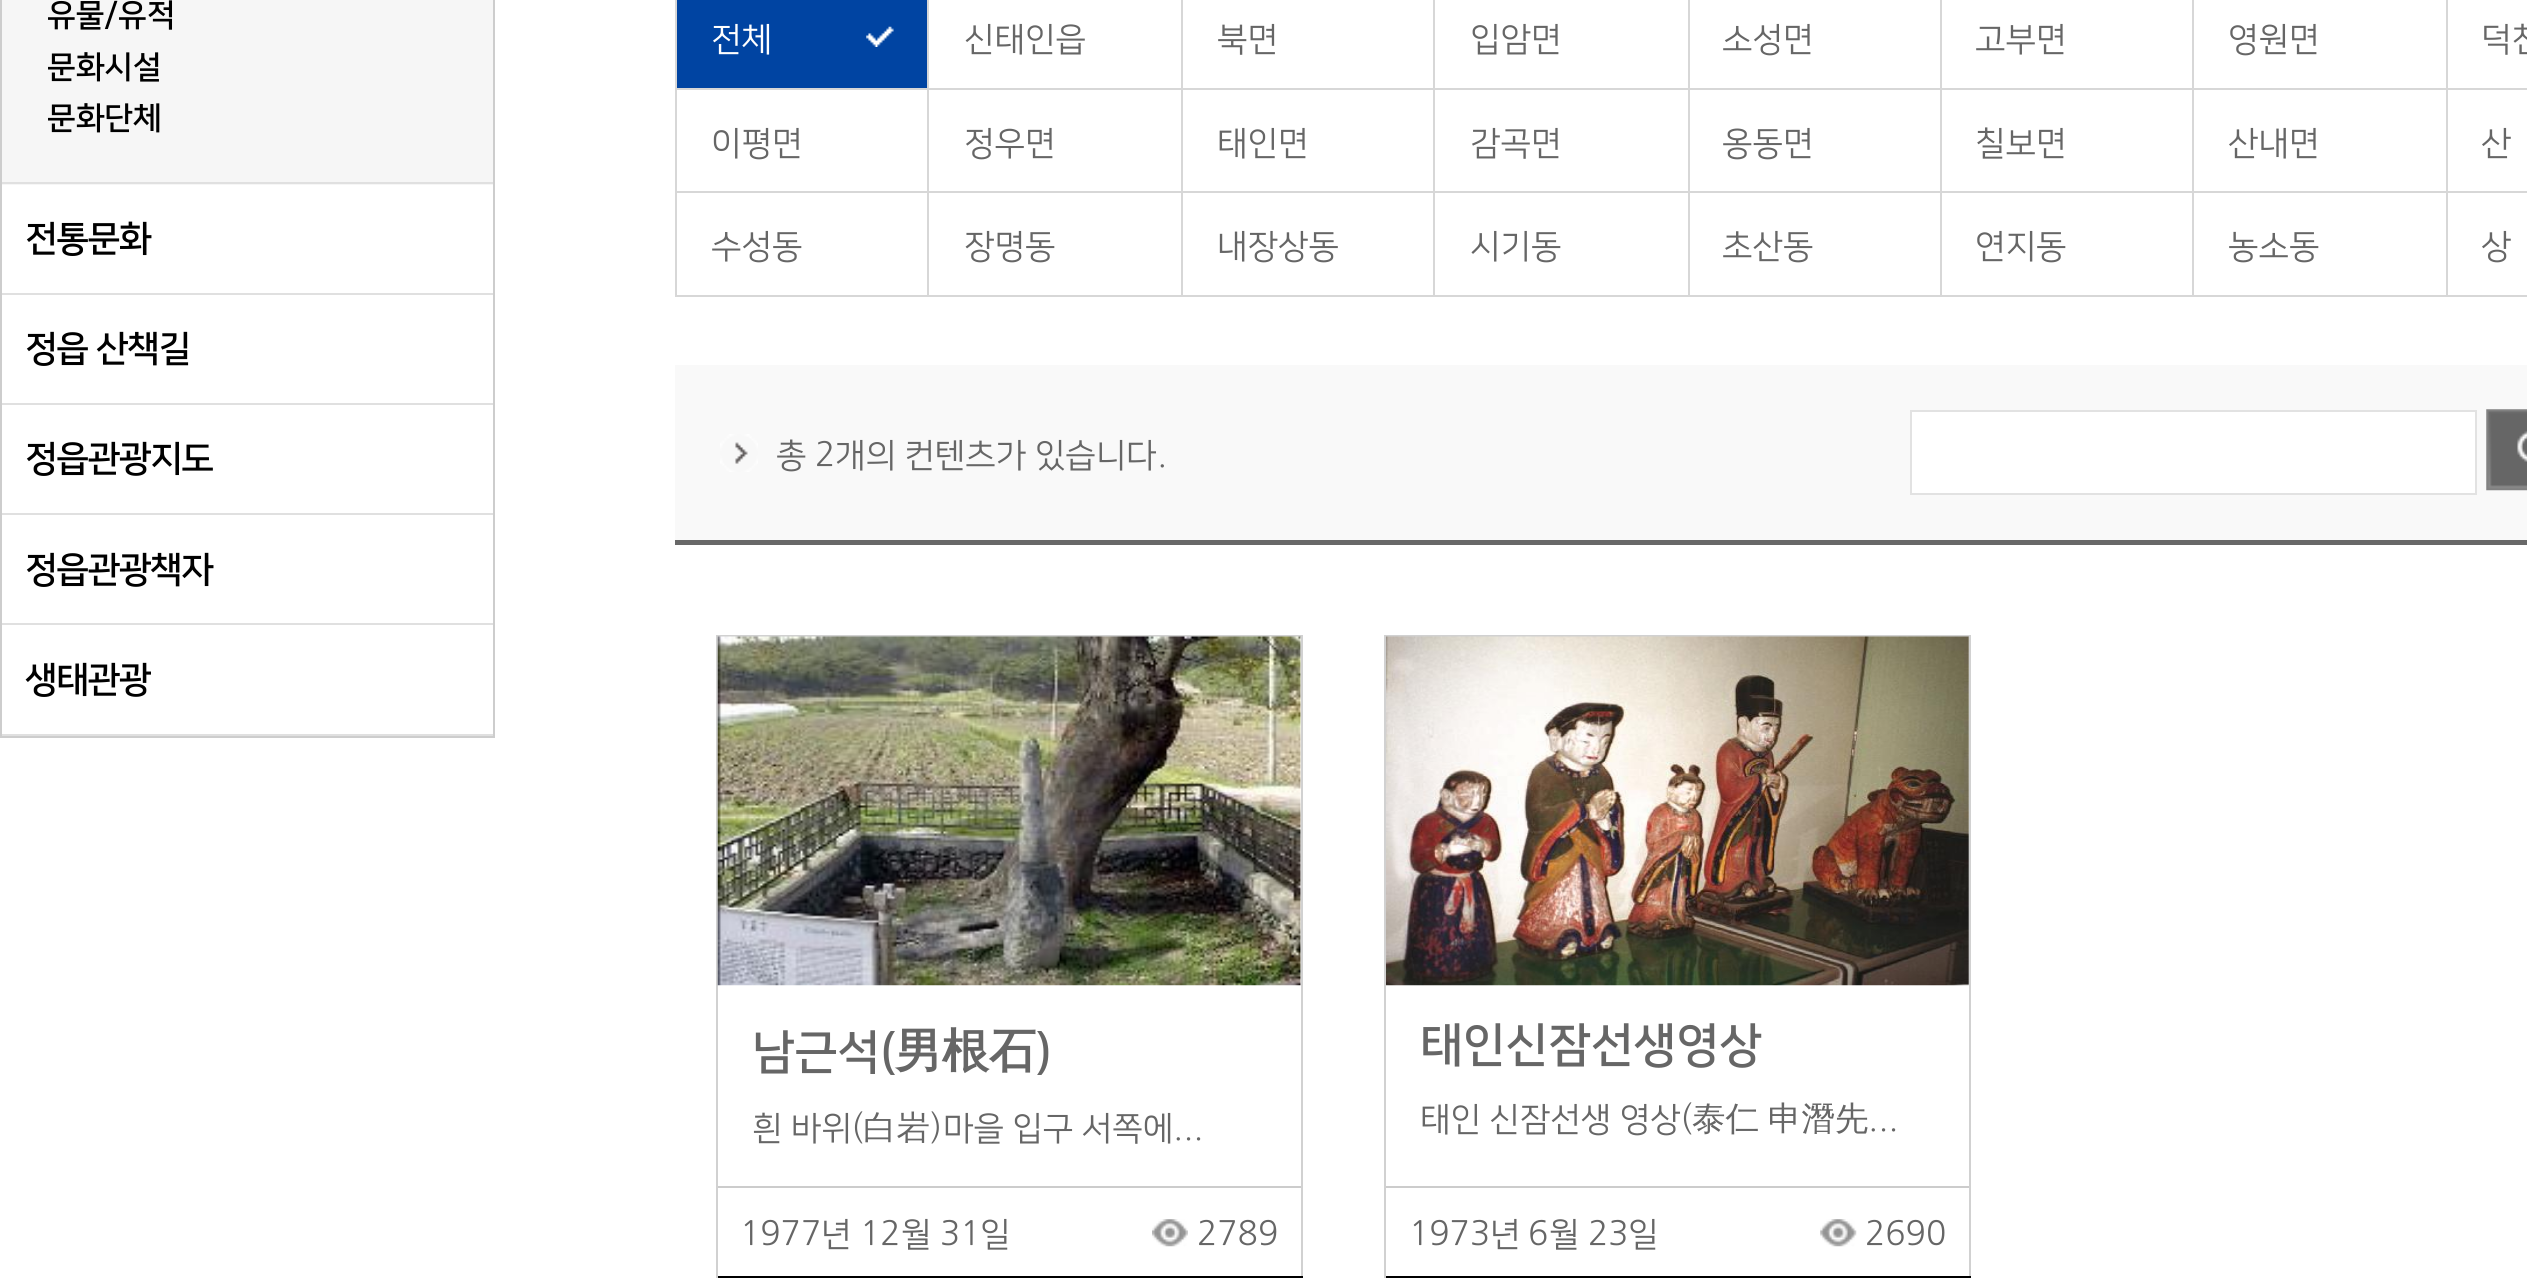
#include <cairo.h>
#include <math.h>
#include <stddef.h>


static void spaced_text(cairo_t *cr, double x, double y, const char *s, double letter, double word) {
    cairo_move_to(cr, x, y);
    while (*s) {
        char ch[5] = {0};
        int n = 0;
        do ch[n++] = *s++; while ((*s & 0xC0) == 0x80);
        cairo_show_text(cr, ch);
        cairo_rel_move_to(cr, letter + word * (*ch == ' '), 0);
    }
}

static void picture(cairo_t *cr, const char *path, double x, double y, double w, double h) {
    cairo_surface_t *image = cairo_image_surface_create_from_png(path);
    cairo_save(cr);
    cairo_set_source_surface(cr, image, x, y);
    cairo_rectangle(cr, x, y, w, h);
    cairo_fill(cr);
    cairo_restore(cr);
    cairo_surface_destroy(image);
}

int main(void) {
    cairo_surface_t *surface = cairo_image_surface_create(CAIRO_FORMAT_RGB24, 2527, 1286);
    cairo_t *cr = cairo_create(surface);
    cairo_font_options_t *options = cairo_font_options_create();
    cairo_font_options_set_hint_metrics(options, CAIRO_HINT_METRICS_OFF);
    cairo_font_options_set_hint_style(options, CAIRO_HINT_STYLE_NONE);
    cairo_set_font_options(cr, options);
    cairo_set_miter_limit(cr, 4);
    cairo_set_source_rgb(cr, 1, 1, 1);
    cairo_paint(cr);
    cairo_set_source_rgb(cr, 0.804, 0.804, 0.804);
    cairo_rectangle(cr, 493, 0, 2, 738);
    cairo_fill(cr);
    cairo_rectangle(cr, 0, 736, 495, 2);
    cairo_fill(cr);
    cairo_rectangle(cr, 0, 0, 2, 738);
    cairo_fill(cr);
    cairo_set_source_rgb(cr, 0.961, 0.961, 0.961);
    cairo_rectangle(cr, 2, 0, 491, 185);
    cairo_fill(cr);
    cairo_set_source_rgb(cr, 0.878, 0.878, 0.878);
    cairo_rectangle(cr, 2, 182, 491, 2);
    cairo_fill(cr);
    cairo_select_font_face(cr, "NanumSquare", CAIRO_FONT_SLANT_NORMAL, CAIRO_FONT_WEIGHT_BOLD);
    cairo_set_font_size(cr, 31.5);
    cairo_set_source_rgb(cr, 0, 0, 0);
    cairo_move_to(cr, 47, 25);
    cairo_show_text(cr, "유물/유적");
    cairo_move_to(cr, 47, 77);
    cairo_show_text(cr, "문화시설");
    cairo_move_to(cr, 47, 128);
    cairo_show_text(cr, "문화단체");
    cairo_set_source_rgb(cr, 0.878, 0.878, 0.878);
    cairo_rectangle(cr, 2, 293, 491, 2);
    cairo_fill(cr);
    cairo_set_font_size(cr, 36);
    cairo_set_source_rgb(cr, 0, 0, 0);
    spaced_text(cr, 25, 250, "전통문화", -1.5, 0);
    cairo_set_source_rgb(cr, 0.878, 0.878, 0.878);
    cairo_rectangle(cr, 2, 403, 491, 2);
    cairo_fill(cr);
    cairo_set_source_rgb(cr, 0, 0, 0);
    spaced_text(cr, 25, 360, "정읍", -1.5, 0);
    spaced_text(cr, 96, 360, "산책길", -1.5, 0);
    cairo_set_source_rgb(cr, 0.878, 0.878, 0.878);
    cairo_rectangle(cr, 2, 513, 491, 2);
    cairo_fill(cr);
    cairo_set_source_rgb(cr, 0, 0, 0);
    spaced_text(cr, 25, 470, "정읍관광지도", -1.5, 0);
    cairo_set_source_rgb(cr, 0.878, 0.878, 0.878);
    cairo_rectangle(cr, 2, 623, 491, 2);
    cairo_fill(cr);
    cairo_set_source_rgb(cr, 0, 0, 0);
    spaced_text(cr, 25, 581, "정읍관광책자", -1.5, 0);
    cairo_set_source_rgb(cr, 0.878, 0.878, 0.878);
    cairo_rectangle(cr, 2, 734, 491, 2);
    cairo_fill(cr);
    cairo_set_source_rgb(cr, 0, 0, 0);
    spaced_text(cr, 25, 691, "생태관광", -1.5, 0);
    cairo_set_source_rgb(cr, 0.843, 0.843, 0.843);
    cairo_rectangle(cr, 675, 0, 2, 297);
    cairo_fill(cr);
    cairo_set_source_rgb(cr, 0, 0.267, 0.635);
    cairo_rectangle(cr, 677, 0, 250, 88);
    cairo_fill(cr);
    picture(cr, "img1.png", 866, 26, 28, 21);
    cairo_set_source_rgb(cr, 0.843, 0.843, 0.843);
    cairo_rectangle(cr, 927, 0, 2, 297);
    cairo_fill(cr);
    cairo_rectangle(cr, 677, 88, 252, 2);
    cairo_fill(cr);
    cairo_select_font_face(cr, "NanumSquare", CAIRO_FONT_SLANT_NORMAL, CAIRO_FONT_WEIGHT_NORMAL);
    cairo_set_font_size(cr, 33.5);
    cairo_set_source_rgb(cr, 1, 1, 1);
    cairo_move_to(cr, 711, 50);
    cairo_show_text(cr, "전체");
    cairo_set_source_rgb(cr, 0.843, 0.843, 0.843);
    cairo_rectangle(cr, 1181, 0, 2, 297);
    cairo_fill(cr);
    cairo_rectangle(cr, 929, 88, 255, 2);
    cairo_fill(cr);
    cairo_set_source_rgb(cr, 0.4, 0.4, 0.4);
    cairo_move_to(cr, 964, 50);
    cairo_show_text(cr, "신태인읍");
    cairo_set_source_rgb(cr, 0.843, 0.843, 0.843);
    cairo_rectangle(cr, 1433, 0, 2, 297);
    cairo_fill(cr);
    cairo_rectangle(cr, 1184, 88, 252, 2);
    cairo_fill(cr);
    cairo_set_source_rgb(cr, 0.4, 0.4, 0.4);
    cairo_move_to(cr, 1217, 50);
    cairo_show_text(cr, "북면");
    cairo_set_source_rgb(cr, 0.843, 0.843, 0.843);
    cairo_rectangle(cr, 1688, 0, 2, 297);
    cairo_fill(cr);
    cairo_rectangle(cr, 1436, 88, 254, 2);
    cairo_fill(cr);
    cairo_set_source_rgb(cr, 0.4, 0.4, 0.4);
    cairo_move_to(cr, 1470, 50);
    cairo_show_text(cr, "입암면");
    cairo_set_source_rgb(cr, 0.843, 0.843, 0.843);
    cairo_rectangle(cr, 1940, 0, 2, 297);
    cairo_fill(cr);
    cairo_rectangle(cr, 1690, 88, 252, 2);
    cairo_fill(cr);
    cairo_set_source_rgb(cr, 0.4, 0.4, 0.4);
    cairo_move_to(cr, 1722, 50);
    cairo_show_text(cr, "소성면");
    cairo_set_source_rgb(cr, 0.843, 0.843, 0.843);
    cairo_rectangle(cr, 2192, 0, 2, 297);
    cairo_fill(cr);
    cairo_rectangle(cr, 1942, 88, 252, 2);
    cairo_fill(cr);
    cairo_set_source_rgb(cr, 0.4, 0.4, 0.4);
    cairo_move_to(cr, 1975, 50);
    cairo_show_text(cr, "고부면");
    cairo_set_source_rgb(cr, 0.843, 0.843, 0.843);
    cairo_rectangle(cr, 2446, 0, 2, 297);
    cairo_fill(cr);
    cairo_rectangle(cr, 2194, 88, 333, 2);
    cairo_fill(cr);
    cairo_set_source_rgb(cr, 0.4, 0.4, 0.4);
    cairo_move_to(cr, 2228, 50);
    cairo_show_text(cr, "영원면");
    cairo_move_to(cr, 2481, 50);
    cairo_show_text(cr, "덕천");
    cairo_set_source_rgb(cr, 0.843, 0.843, 0.843);
    cairo_rectangle(cr, 677, 191, 1850, 2);
    cairo_fill(cr);
    cairo_set_source_rgb(cr, 0.4, 0.4, 0.4);
    cairo_move_to(cr, 711, 154);
    cairo_show_text(cr, "이평면");
    cairo_move_to(cr, 964, 154);
    cairo_show_text(cr, "정우면");
    cairo_move_to(cr, 1217, 154);
    cairo_show_text(cr, "태인면");
    cairo_move_to(cr, 1470, 154);
    cairo_show_text(cr, "감곡면");
    cairo_move_to(cr, 1722, 154);
    cairo_show_text(cr, "옹동면");
    cairo_move_to(cr, 1975, 154);
    cairo_show_text(cr, "칠보면");
    cairo_move_to(cr, 2228, 154);
    cairo_show_text(cr, "산내면");
    cairo_move_to(cr, 2481, 154);
    cairo_show_text(cr, "산");
    cairo_set_source_rgb(cr, 0.843, 0.843, 0.843);
    cairo_rectangle(cr, 677, 295, 1850, 2);
    cairo_fill(cr);
    cairo_set_source_rgb(cr, 0.4, 0.4, 0.4);
    cairo_move_to(cr, 711, 257);
    cairo_show_text(cr, "수성동");
    cairo_move_to(cr, 964, 257);
    cairo_show_text(cr, "장명동");
    cairo_move_to(cr, 1217, 257);
    cairo_show_text(cr, "내장상동");
    cairo_move_to(cr, 1470, 257);
    cairo_show_text(cr, "시기동");
    cairo_move_to(cr, 1722, 257);
    cairo_show_text(cr, "초산동");
    cairo_move_to(cr, 1975, 257);
    cairo_show_text(cr, "연지동");
    cairo_move_to(cr, 2228, 257);
    cairo_show_text(cr, "농소동");
    cairo_move_to(cr, 2481, 257);
    cairo_show_text(cr, "상");
    cairo_set_source_rgb(cr, 0.973, 0.973, 0.973);
    cairo_rectangle(cr, 675, 365, 1852, 175);
    cairo_fill(cr);
    picture(cr, "img2.png", 720, 434, 38, 38);
    cairo_set_source_rgb(cr, 0.4, 0.4, 0.4);
    cairo_move_to(cr, 776, 466);
    cairo_show_text(cr, "총");
    cairo_select_font_face(cr, "NanumGothic", CAIRO_FONT_SLANT_NORMAL, CAIRO_FONT_WEIGHT_NORMAL);
    cairo_move_to(cr, 815, 466);
    cairo_show_text(cr, "2");
    cairo_select_font_face(cr, "NanumSquare", CAIRO_FONT_SLANT_NORMAL, CAIRO_FONT_WEIGHT_NORMAL);
    cairo_move_to(cr, 835, 466);
    cairo_show_text(cr, "개의 컨텐츠가 있습니다");
    cairo_select_font_face(cr, "NanumGothic", CAIRO_FONT_SLANT_NORMAL, CAIRO_FONT_WEIGHT_NORMAL);
    cairo_move_to(cr, 1157, 466);
    cairo_show_text(cr, ".");
    cairo_set_source_rgb(cr, 1, 1, 1);
    cairo_rectangle(cr, 1911, 411, 565, 83);
    cairo_fill_preserve(cr);
    cairo_set_source_rgb(cr, 0.886, 0.886, 0.886);
    cairo_stroke(cr);
    picture(cr, "img3.png", 2486, 409, 41, 82);
    cairo_set_source_rgb(cr, 0.408, 0.408, 0.408);
    cairo_rectangle(cr, 675, 540, 1852, 5);
    cairo_fill(cr);
    cairo_set_source_rgb(cr, 0.82, 0.82, 0.82);
    cairo_rectangle(cr, 716, 635, 587, 2);
    cairo_fill(cr);
    cairo_rectangle(cr, 1301, 635, 2, 643);
    cairo_fill(cr);
    cairo_set_source_rgb(cr, 0, 0, 0);
    cairo_rectangle(cr, 716, 1276, 587, 2);
    cairo_fill(cr);
    cairo_set_source_rgb(cr, 0.82, 0.82, 0.82);
    cairo_rectangle(cr, 716, 635, 2, 643);
    cairo_fill(cr);
    picture(cr, "img4.png", 717, 636, 584, 350);
    cairo_select_font_face(cr, "NanumSquare", CAIRO_FONT_SLANT_NORMAL, CAIRO_FONT_WEIGHT_BOLD);
    cairo_set_font_size(cr, 47);
    cairo_set_source_rgb(cr, 0.4, 0.4, 0.4);
    cairo_move_to(cr, 752, 1067);
    cairo_show_text(cr, "남근석(");
    cairo_select_font_face(cr, "WenQuanYi Zen Hei", CAIRO_FONT_SLANT_NORMAL, CAIRO_FONT_WEIGHT_BOLD);
    cairo_move_to(cr, 895, 1067);
    cairo_show_text(cr, "男根石");
    cairo_select_font_face(cr, "NanumSquare", CAIRO_FONT_SLANT_NORMAL, CAIRO_FONT_WEIGHT_BOLD);
    cairo_move_to(cr, 1036, 1067);
    cairo_show_text(cr, ")");
    cairo_select_font_face(cr, "NanumSquare", CAIRO_FONT_SLANT_NORMAL, CAIRO_FONT_WEIGHT_NORMAL);
    cairo_set_font_size(cr, 33.5);
    cairo_move_to(cr, 752, 1139);
    cairo_show_text(cr, "흰 바위");
    cairo_select_font_face(cr, "NanumGothic", CAIRO_FONT_SLANT_NORMAL, CAIRO_FONT_WEIGHT_NORMAL);
    cairo_move_to(cr, 851, 1139);
    cairo_show_text(cr, "(");
    cairo_select_font_face(cr, "WenQuanYi Zen Hei Medium", CAIRO_FONT_SLANT_NORMAL, CAIRO_FONT_WEIGHT_NORMAL);
    cairo_move_to(cr, 863, 1139);
    cairo_show_text(cr, "白岩");
    cairo_select_font_face(cr, "NanumGothic", CAIRO_FONT_SLANT_NORMAL, CAIRO_FONT_WEIGHT_NORMAL);
    cairo_move_to(cr, 930, 1139);
    cairo_show_text(cr, ")");
    cairo_select_font_face(cr, "NanumSquare", CAIRO_FONT_SLANT_NORMAL, CAIRO_FONT_WEIGHT_NORMAL);
    cairo_move_to(cr, 943, 1139);
    cairo_show_text(cr, "마을 입구 서쪽에");
    cairo_select_font_face(cr, "NanumGothic", CAIRO_FONT_SLANT_NORMAL, CAIRO_FONT_WEIGHT_NORMAL);
    cairo_move_to(cr, 1173, 1139);
    cairo_show_text(cr, "...");
    cairo_set_source_rgb(cr, 0.8, 0.8, 0.8);
    cairo_rectangle(cr, 718, 1186, 583, 2);
    cairo_fill(cr);
    cairo_set_source_rgb(cr, 0.4, 0.4, 0.4);
    cairo_move_to(cr, 740, 1245);
    cairo_show_text(cr, "1977");
    cairo_select_font_face(cr, "NanumSquare", CAIRO_FONT_SLANT_NORMAL, CAIRO_FONT_WEIGHT_NORMAL);
    cairo_move_to(cr, 821, 1245);
    cairo_show_text(cr, "년");
    cairo_select_font_face(cr, "NanumGothic", CAIRO_FONT_SLANT_NORMAL, CAIRO_FONT_WEIGHT_NORMAL);
    cairo_move_to(cr, 860, 1245);
    cairo_show_text(cr, "12");
    cairo_select_font_face(cr, "NanumSquare", CAIRO_FONT_SLANT_NORMAL, CAIRO_FONT_WEIGHT_NORMAL);
    cairo_move_to(cr, 901, 1245);
    cairo_show_text(cr, "월");
    cairo_select_font_face(cr, "NanumGothic", CAIRO_FONT_SLANT_NORMAL, CAIRO_FONT_WEIGHT_NORMAL);
    cairo_move_to(cr, 940, 1245);
    cairo_show_text(cr, "31");
    cairo_select_font_face(cr, "NanumSquare", CAIRO_FONT_SLANT_NORMAL, CAIRO_FONT_WEIGHT_NORMAL);
    cairo_move_to(cr, 980, 1245);
    cairo_show_text(cr, "일");
    picture(cr, "img5.png", 1152, 1219, 36, 28);
    cairo_select_font_face(cr, "NanumGothic", CAIRO_FONT_SLANT_NORMAL, CAIRO_FONT_WEIGHT_NORMAL);
    cairo_move_to(cr, 1197, 1245);
    cairo_show_text(cr, "2789");
    cairo_set_source_rgb(cr, 0.82, 0.82, 0.82);
    cairo_rectangle(cr, 1384, 635, 587, 2);
    cairo_fill(cr);
    cairo_rectangle(cr, 1969, 635, 2, 643);
    cairo_fill(cr);
    cairo_set_source_rgb(cr, 0, 0, 0);
    cairo_rectangle(cr, 1384, 1276, 587, 2);
    cairo_fill(cr);
    cairo_set_source_rgb(cr, 0.82, 0.82, 0.82);
    cairo_rectangle(cr, 1384, 635, 2, 643);
    cairo_fill(cr);
    picture(cr, "img6.png", 1386, 636, 583, 350);
    cairo_select_font_face(cr, "NanumSquare", CAIRO_FONT_SLANT_NORMAL, CAIRO_FONT_WEIGHT_BOLD);
    cairo_set_font_size(cr, 47);
    cairo_set_source_rgb(cr, 0.4, 0.4, 0.4);
    cairo_move_to(cr, 1420, 1060);
    cairo_show_text(cr, "태인신잠선생영상");
    cairo_select_font_face(cr, "NanumSquare", CAIRO_FONT_SLANT_NORMAL, CAIRO_FONT_WEIGHT_NORMAL);
    cairo_set_font_size(cr, 33.5);
    cairo_move_to(cr, 1420, 1130);
    cairo_show_text(cr, "태인 신잠선생 영상");
    cairo_select_font_face(cr, "NanumGothic", CAIRO_FONT_SLANT_NORMAL, CAIRO_FONT_WEIGHT_NORMAL);
    cairo_move_to(cr, 1680, 1130);
    cairo_show_text(cr, "(");
    cairo_select_font_face(cr, "WenQuanYi Zen Hei Medium", CAIRO_FONT_SLANT_NORMAL, CAIRO_FONT_WEIGHT_NORMAL);
    cairo_move_to(cr, 1692, 1130);
    cairo_show_text(cr, "泰仁");
    cairo_move_to(cr, 1768, 1130);
    cairo_show_text(cr, "申潛先");
    cairo_select_font_face(cr, "NanumGothic", CAIRO_FONT_SLANT_NORMAL, CAIRO_FONT_WEIGHT_NORMAL);
    cairo_move_to(cr, 1868, 1130);
    cairo_show_text(cr, "...");
    cairo_set_source_rgb(cr, 0.8, 0.8, 0.8);
    cairo_rectangle(cr, 1386, 1186, 583, 2);
    cairo_fill(cr);
    cairo_set_source_rgb(cr, 0.4, 0.4, 0.4);
    cairo_move_to(cr, 1409, 1245);
    cairo_show_text(cr, "1973");
    cairo_select_font_face(cr, "NanumSquare", CAIRO_FONT_SLANT_NORMAL, CAIRO_FONT_WEIGHT_NORMAL);
    cairo_move_to(cr, 1490, 1245);
    cairo_show_text(cr, "년");
    cairo_select_font_face(cr, "NanumGothic", CAIRO_FONT_SLANT_NORMAL, CAIRO_FONT_WEIGHT_NORMAL);
    cairo_move_to(cr, 1528, 1245);
    cairo_show_text(cr, "6");
    cairo_select_font_face(cr, "NanumSquare", CAIRO_FONT_SLANT_NORMAL, CAIRO_FONT_WEIGHT_NORMAL);
    cairo_move_to(cr, 1549, 1245);
    cairo_show_text(cr, "월");
    cairo_select_font_face(cr, "NanumGothic", CAIRO_FONT_SLANT_NORMAL, CAIRO_FONT_WEIGHT_NORMAL);
    cairo_move_to(cr, 1588, 1245);
    cairo_show_text(cr, "23");
    cairo_select_font_face(cr, "NanumSquare", CAIRO_FONT_SLANT_NORMAL, CAIRO_FONT_WEIGHT_NORMAL);
    cairo_move_to(cr, 1628, 1245);
    cairo_show_text(cr, "일");
    picture(cr, "img7.png", 1820, 1219, 37, 28);
    cairo_select_font_face(cr, "NanumGothic", CAIRO_FONT_SLANT_NORMAL, CAIRO_FONT_WEIGHT_NORMAL);
    cairo_move_to(cr, 1865, 1245);
    cairo_show_text(cr, "2690");
    cairo_surface_write_to_png(surface, "page.png");
    cairo_font_options_destroy(options);
    cairo_destroy(cr);
    cairo_surface_destroy(surface);
    return 0;
}
